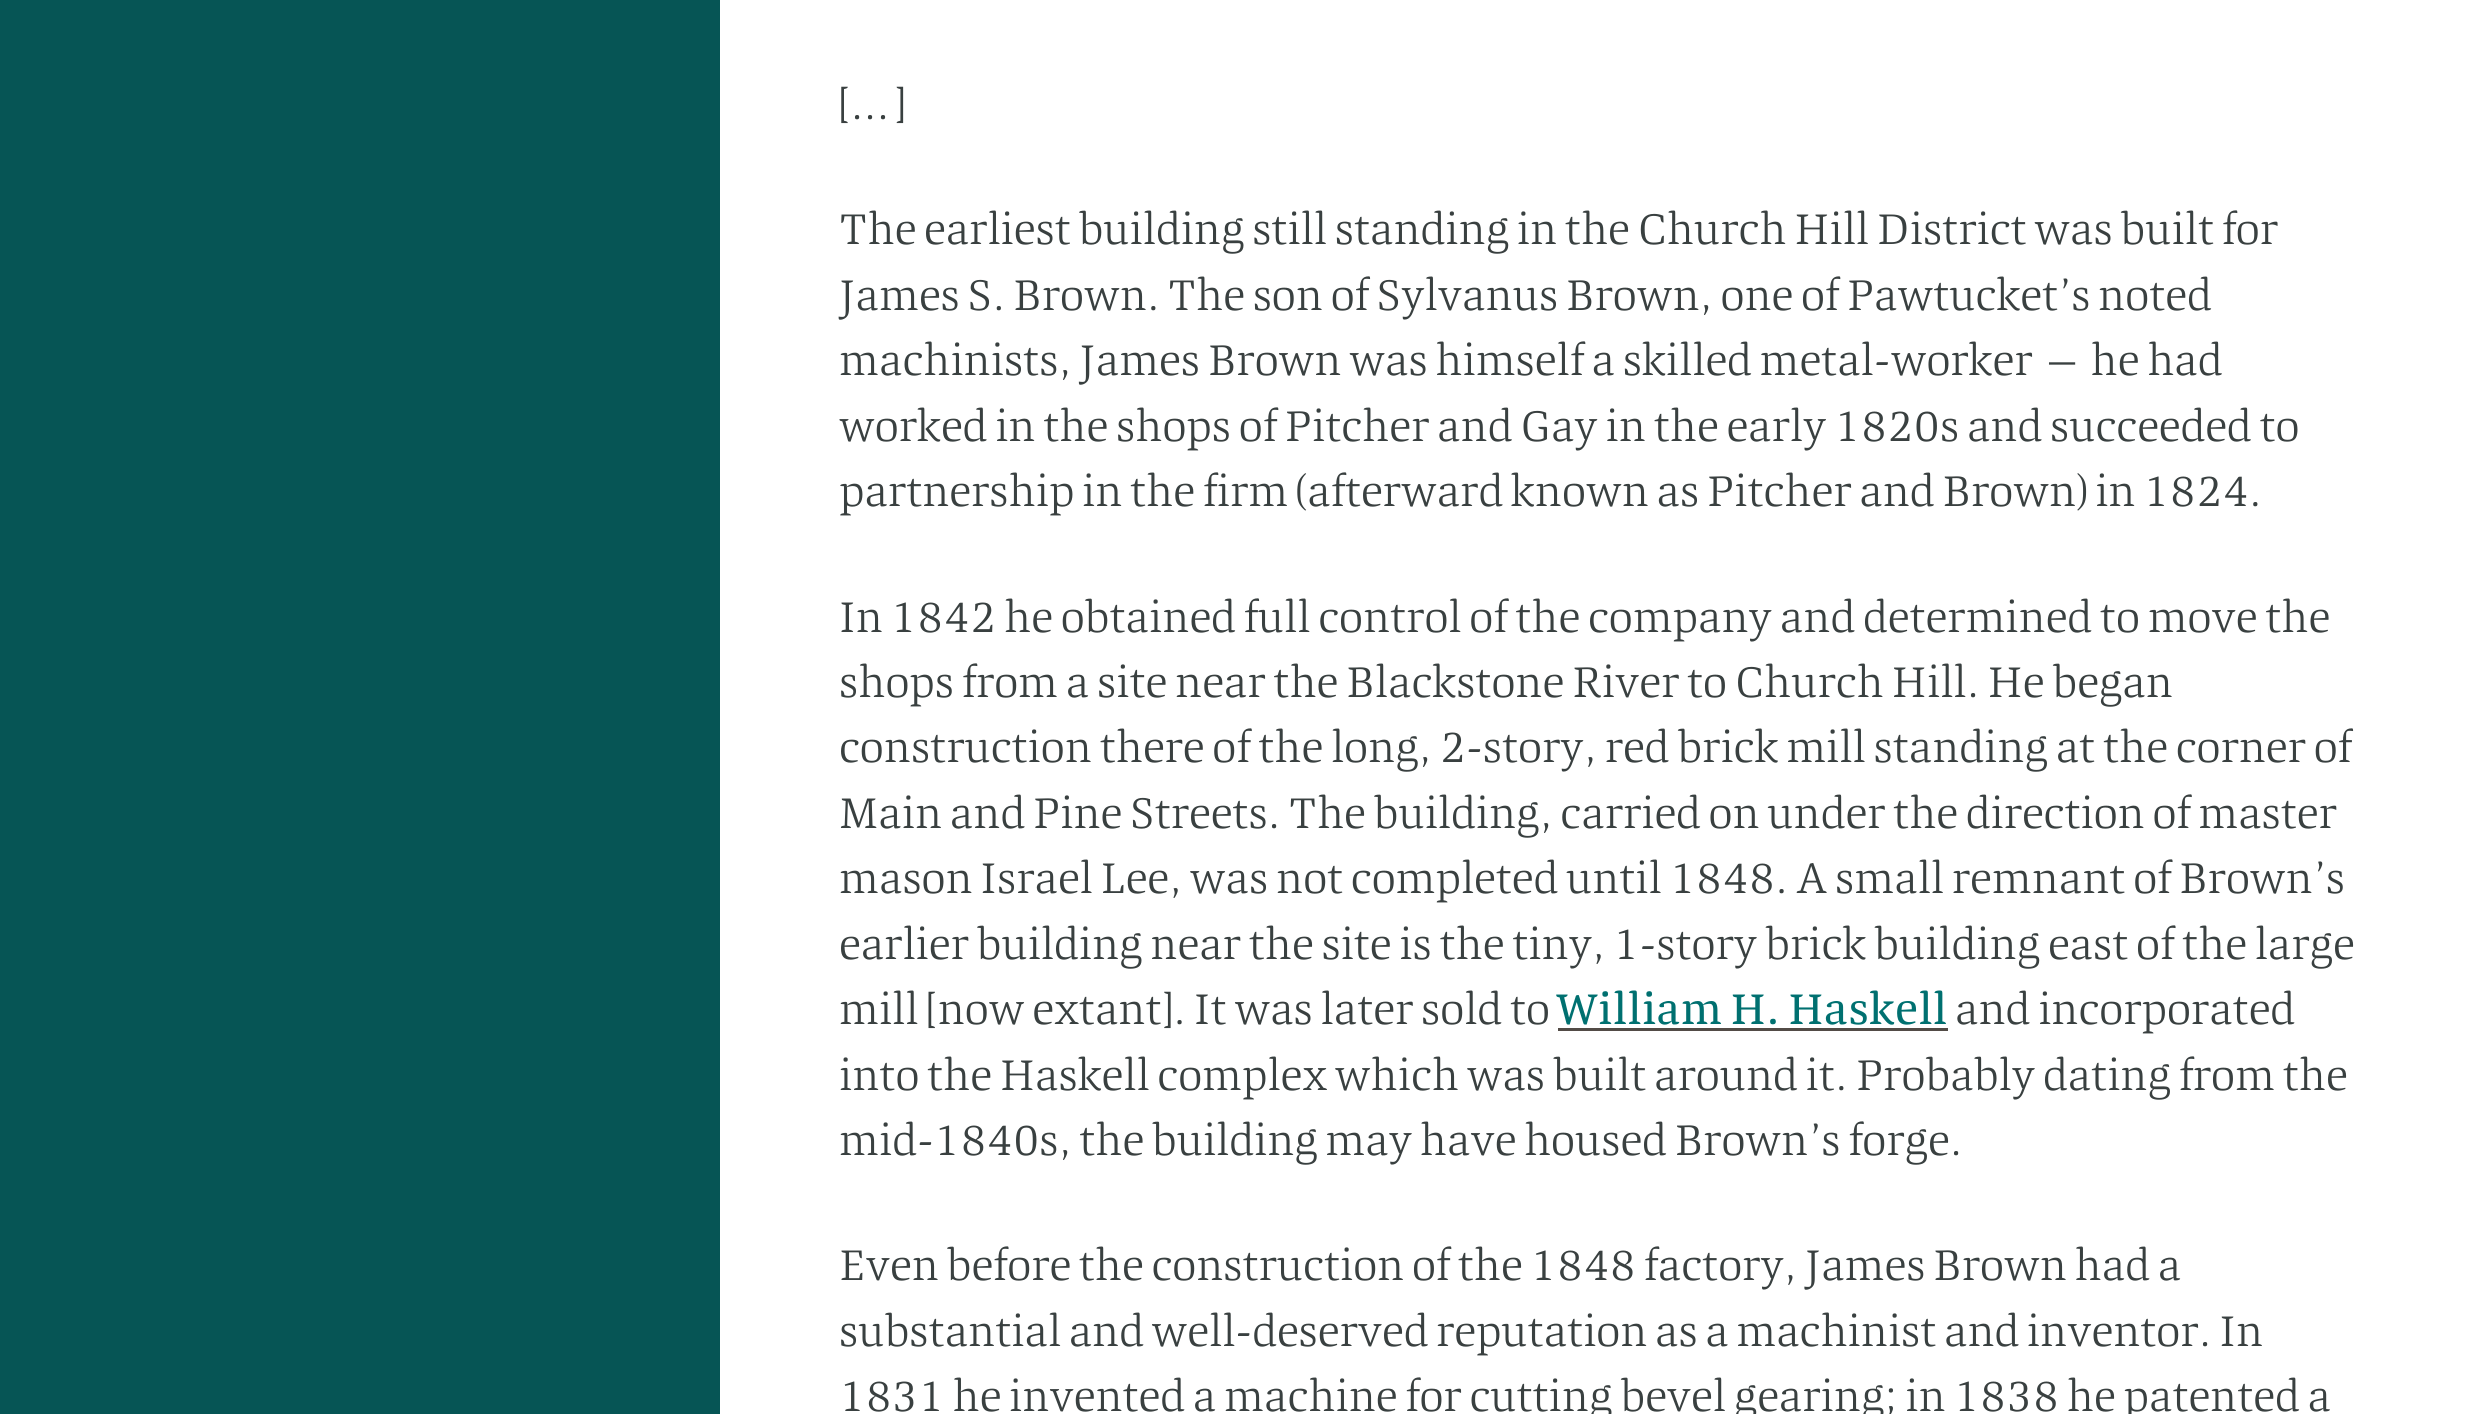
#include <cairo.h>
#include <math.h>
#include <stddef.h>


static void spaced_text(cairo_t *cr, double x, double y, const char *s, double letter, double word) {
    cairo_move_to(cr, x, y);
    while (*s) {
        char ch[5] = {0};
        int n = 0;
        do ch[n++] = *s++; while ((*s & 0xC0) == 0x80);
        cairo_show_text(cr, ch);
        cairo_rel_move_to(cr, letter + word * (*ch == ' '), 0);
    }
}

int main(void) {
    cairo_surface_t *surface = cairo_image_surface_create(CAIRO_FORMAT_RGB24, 2481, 1414);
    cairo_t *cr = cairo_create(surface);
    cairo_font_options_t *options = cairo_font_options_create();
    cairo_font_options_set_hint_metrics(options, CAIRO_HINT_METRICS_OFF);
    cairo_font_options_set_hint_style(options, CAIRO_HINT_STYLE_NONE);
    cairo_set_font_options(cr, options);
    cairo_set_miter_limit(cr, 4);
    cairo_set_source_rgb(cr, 0.027, 0.333, 0.333);
    cairo_paint(cr);
    cairo_set_source_rgb(cr, 1, 1, 1);
    cairo_rectangle(cr, 720, 0, 1761, 1414);
    cairo_fill(cr);
    cairo_select_font_face(cr, "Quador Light", CAIRO_FONT_SLANT_NORMAL, CAIRO_FONT_WEIGHT_NORMAL);
    cairo_set_font_size(cr, 43.65);
    cairo_set_source_rgb(cr, 0.224, 0.251, 0.251);
    cairo_move_to(cr, 839, 119);
    cairo_show_text(cr, "[…]");
    spaced_text(cr, 839, 244, "The earliest building still standing in the Church Hill District was built for", 0, -0.1);
    spaced_text(cr, 839, 310, "James S. Brown. The son of Sylvanus Brown, one of Pawtucket’s noted", 0, -0.1);
    spaced_text(cr, 839, 375, "machinists, James Brown was himself a skilled metal-worker — he had", 0, -0.1);
    cairo_move_to(cr, 839, 441);
    cairo_show_text(cr, "worked in the shops of Pitcher and Gay in the early 1820s and succeeded to");
    spaced_text(cr, 839, 506, "partnership in the firm (afterward known as Pitcher and Brown) in 1824.", 0, -0.1);
    cairo_move_to(cr, 839, 632);
    cairo_show_text(cr, "In 1842 he obtained full control of the company and determined to move the");
    cairo_move_to(cr, 839, 697);
    cairo_show_text(cr, "shops from a site near the Blackstone River to Church Hill. He began");
    cairo_move_to(cr, 839, 762);
    cairo_show_text(cr, "construction there of the long, 2-story, red brick mill standing at the corner of");
    spaced_text(cr, 839, 828, "Main and Pine Streets. The building, carried on under the direction of master", 0, -0.1);
    spaced_text(cr, 839, 893, "mason Israel Lee, was not completed until 1848. A small remnant of Brown’s", 0, -0.1);
    cairo_move_to(cr, 839, 959);
    cairo_show_text(cr, "earlier building near the site is the tiny, 1-story brick building east of the large");
    cairo_move_to(cr, 839, 1024);
    cairo_show_text(cr, "mill [now extant]. It was later sold to");
    cairo_select_font_face(cr, "Quador", CAIRO_FONT_SLANT_NORMAL, CAIRO_FONT_WEIGHT_NORMAL);
    cairo_set_source_rgb(cr, 0, 0.439, 0.439);
    cairo_move_to(cr, 1556, 1024);
    cairo_show_text(cr, "William H. Haskell");
    cairo_set_source_rgb(cr, 0.322, 0.294, 0.275);
    cairo_rectangle(cr, 1558, 1028, 390, 3);
    cairo_fill(cr);
    cairo_select_font_face(cr, "Quador Light", CAIRO_FONT_SLANT_NORMAL, CAIRO_FONT_WEIGHT_NORMAL);
    cairo_set_source_rgb(cr, 0.224, 0.251, 0.251);
    cairo_move_to(cr, 1955, 1024);
    cairo_show_text(cr, "and incorporated");
    spaced_text(cr, 839, 1090, "into the Haskell complex which was built around it. Probably dating from the", 0, -0.1);
    spaced_text(cr, 839, 1155, "mid-1840s, the building may have housed Brown’s forge.", 0, -0.25);
    spaced_text(cr, 839, 1280, "Even before the construction of the 1848 factory, James Brown had a", 0, -0.1);
    spaced_text(cr, 839, 1346, "substantial and well-deserved reputation as a machinist and inventor. In", 0, -0.25);
    cairo_move_to(cr, 839, 1411);
    cairo_show_text(cr, "1831 he invented a machine for cutting bevel gearing; in 1838 he patented a");
    cairo_surface_write_to_png(surface, "page.png");
    cairo_font_options_destroy(options);
    cairo_destroy(cr);
    cairo_surface_destroy(surface);
    return 0;
}
